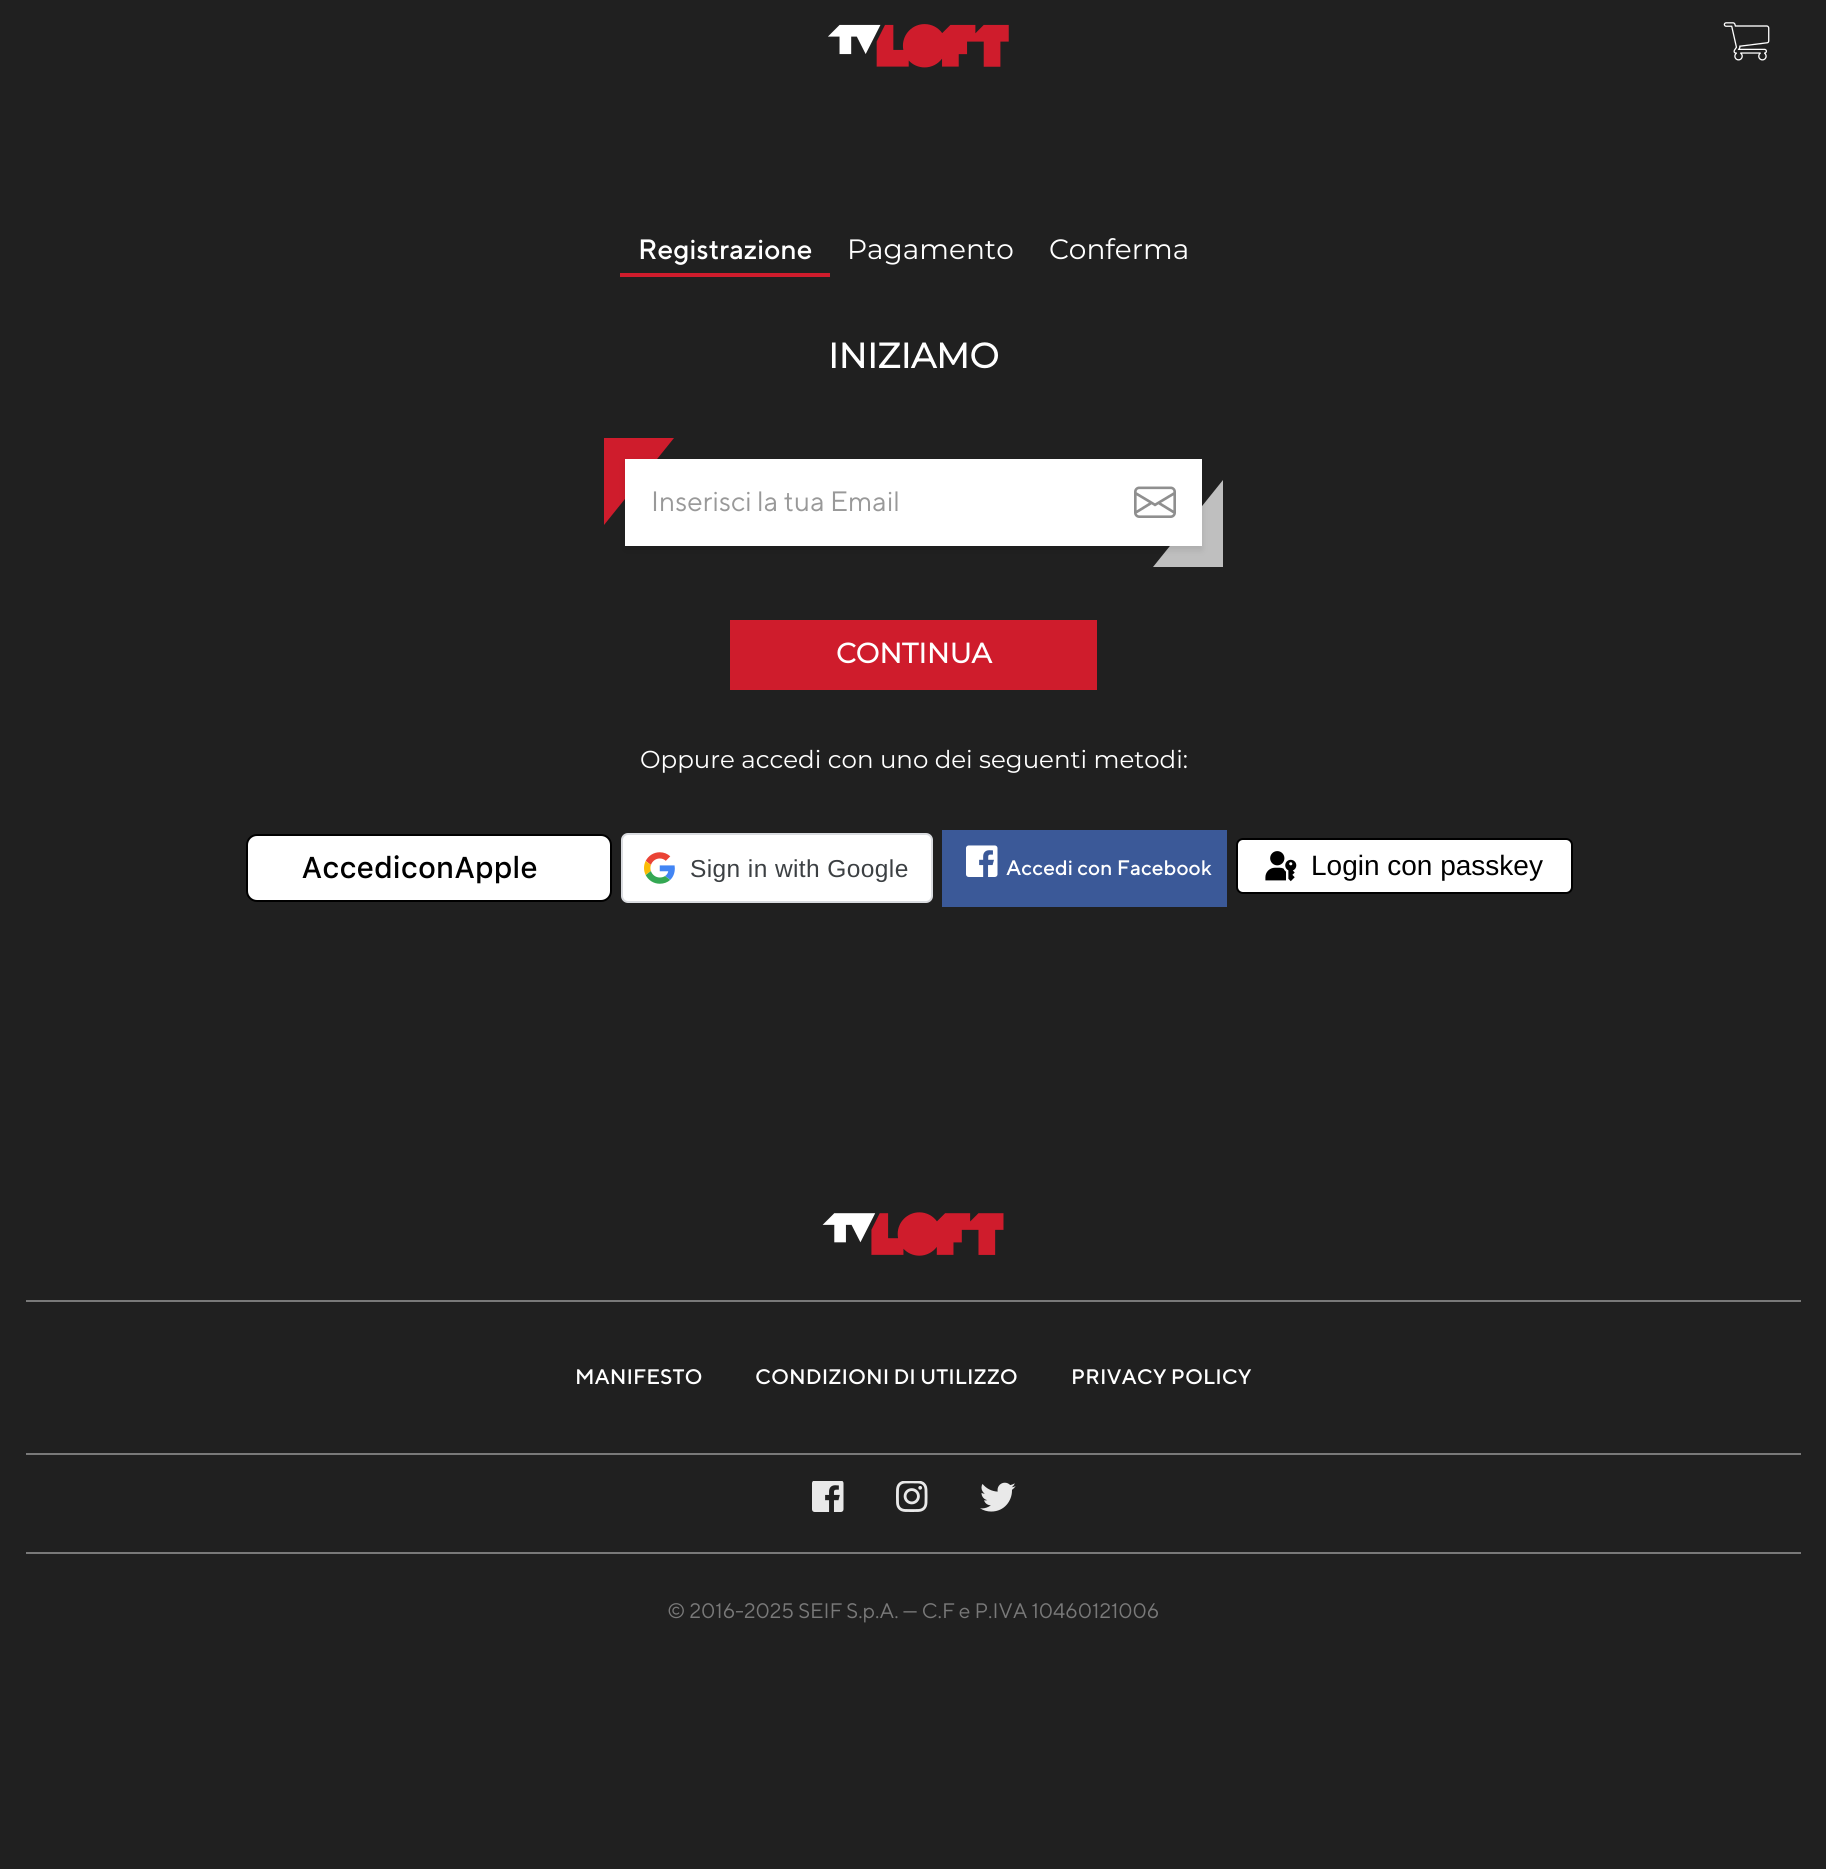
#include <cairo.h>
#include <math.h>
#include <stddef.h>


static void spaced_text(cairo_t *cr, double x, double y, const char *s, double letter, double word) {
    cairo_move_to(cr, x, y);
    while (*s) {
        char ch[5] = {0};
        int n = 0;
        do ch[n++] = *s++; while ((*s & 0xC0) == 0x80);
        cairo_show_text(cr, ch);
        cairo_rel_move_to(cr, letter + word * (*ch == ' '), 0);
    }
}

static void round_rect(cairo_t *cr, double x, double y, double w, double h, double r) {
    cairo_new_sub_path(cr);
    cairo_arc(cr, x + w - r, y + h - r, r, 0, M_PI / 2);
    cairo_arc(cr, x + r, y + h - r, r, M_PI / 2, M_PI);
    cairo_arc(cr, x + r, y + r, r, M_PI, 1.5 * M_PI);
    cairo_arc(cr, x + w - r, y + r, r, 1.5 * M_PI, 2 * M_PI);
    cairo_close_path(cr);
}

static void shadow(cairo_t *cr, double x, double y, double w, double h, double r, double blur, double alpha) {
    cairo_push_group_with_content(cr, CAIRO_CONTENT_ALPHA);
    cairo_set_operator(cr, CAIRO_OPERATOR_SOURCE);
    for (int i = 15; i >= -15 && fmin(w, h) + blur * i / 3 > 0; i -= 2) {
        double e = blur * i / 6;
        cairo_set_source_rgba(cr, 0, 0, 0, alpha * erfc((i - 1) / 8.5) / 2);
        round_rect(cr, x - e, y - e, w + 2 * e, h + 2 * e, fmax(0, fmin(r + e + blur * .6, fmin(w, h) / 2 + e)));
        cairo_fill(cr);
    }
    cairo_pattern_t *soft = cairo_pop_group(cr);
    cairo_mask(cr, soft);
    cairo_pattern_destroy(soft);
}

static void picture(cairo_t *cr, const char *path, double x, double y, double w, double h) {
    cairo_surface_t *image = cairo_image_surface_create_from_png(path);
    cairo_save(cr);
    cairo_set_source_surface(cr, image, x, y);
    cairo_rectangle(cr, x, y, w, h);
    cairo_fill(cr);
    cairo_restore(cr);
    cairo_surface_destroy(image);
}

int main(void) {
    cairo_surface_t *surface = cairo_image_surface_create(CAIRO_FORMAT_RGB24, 1826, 1869);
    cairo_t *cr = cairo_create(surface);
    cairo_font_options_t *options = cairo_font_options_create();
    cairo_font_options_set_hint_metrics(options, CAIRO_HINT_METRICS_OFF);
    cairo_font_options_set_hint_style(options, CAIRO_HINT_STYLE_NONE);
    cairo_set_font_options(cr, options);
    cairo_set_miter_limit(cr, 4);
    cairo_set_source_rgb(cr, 0.125, 0.125, 0.125);
    cairo_paint(cr);
    picture(cr, "img1.png", 828, 24, 181, 44);
    picture(cr, "img2.png", 1723, 22, 47, 39);
    cairo_select_font_face(cr, "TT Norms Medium", CAIRO_FONT_SLANT_NORMAL, CAIRO_FONT_WEIGHT_NORMAL);
    cairo_set_font_size(cr, 28);
    cairo_set_source_rgb(cr, 1, 1, 1);
    cairo_move_to(cr, 638, 259);
    cairo_show_text(cr, "Registrazione");
    cairo_set_source_rgb(cr, 0.812, 0.11, 0.173);
    cairo_rectangle(cr, 620, 273, 210, 4);
    cairo_fill(cr);
    cairo_select_font_face(cr, "Montserrat Thin", CAIRO_FONT_SLANT_NORMAL, CAIRO_FONT_WEIGHT_NORMAL);
    cairo_set_source_rgb(cr, 1, 1, 1);
    cairo_move_to(cr, 847, 259);
    cairo_show_text(cr, "Pagamento");
    cairo_move_to(cr, 1049, 259);
    cairo_show_text(cr, "Conferma");
    cairo_select_font_face(cr, "Montserrat", CAIRO_FONT_SLANT_NORMAL, CAIRO_FONT_WEIGHT_BOLD);
    cairo_set_font_size(cr, 35);
    cairo_move_to(cr, 828, 368);
    cairo_show_text(cr, "INIZIAMO");
    cairo_set_source_rgb(cr, 0.812, 0.11, 0.173);
    cairo_new_path(cr);
    cairo_move_to(cr, 604, 438);
    cairo_line_to(cr, 674, 438);
    cairo_line_to(cr, 604, 525);
    cairo_close_path(cr);
    cairo_fill(cr);
    cairo_set_source_rgb(cr, 0.749, 0.749, 0.749);
    cairo_new_path(cr);
    cairo_move_to(cr, 1223, 567);
    cairo_line_to(cr, 1153, 567);
    cairo_line_to(cr, 1223, 480);
    cairo_close_path(cr);
    cairo_fill(cr);
    cairo_set_source_rgb(cr, 0, 0, 0);
    shadow(cr, 625, 462, 577, 88, 0, 3.5, 0.1);
    cairo_set_source_rgb(cr, 1, 1, 1);
    cairo_rectangle(cr, 625, 459, 577, 87);
    cairo_fill(cr);
    picture(cr, "img3.png", 1134, 486, 42, 32);
    cairo_select_font_face(cr, "TT Norms", CAIRO_FONT_SLANT_NORMAL, CAIRO_FONT_WEIGHT_NORMAL);
    cairo_set_font_size(cr, 28);
    cairo_set_source_rgb(cr, 0.6, 0.6, 0.6);
    cairo_move_to(cr, 651, 511);
    cairo_show_text(cr, "Inserisci la tua Email");
    cairo_set_source_rgb(cr, 0.812, 0.11, 0.173);
    cairo_rectangle(cr, 730, 620, 367, 70);
    cairo_fill(cr);
    cairo_select_font_face(cr, "Montserrat", CAIRO_FONT_SLANT_NORMAL, CAIRO_FONT_WEIGHT_BOLD);
    cairo_set_source_rgb(cr, 1, 1, 1);
    cairo_move_to(cr, 836, 663);
    cairo_show_text(cr, "CONTINUA");
    cairo_select_font_face(cr, "Montserrat Thin", CAIRO_FONT_SLANT_NORMAL, CAIRO_FONT_WEIGHT_NORMAL);
    cairo_set_font_size(cr, 24.5);
    cairo_move_to(cr, 640, 768);
    cairo_show_text(cr, "Oppure accedi con uno dei seguenti metodi:");
    round_rect(cr, 247, 835, 364, 66, 10);
    cairo_fill_preserve(cr);
    cairo_set_source_rgb(cr, 0, 0, 0);
    cairo_stroke(cr);
    cairo_select_font_face(cr, "SF Pro Text Medium", CAIRO_FONT_SLANT_NORMAL, CAIRO_FONT_WEIGHT_NORMAL);
    cairo_set_font_size(cr, 30);
    spaced_text(cr, 294, 878, " Accedi con Apple", 0, -8);
    cairo_set_source_rgb(cr, 1, 1, 1);
    round_rect(cr, 622, 834, 310, 68, 6);
    cairo_fill_preserve(cr);
    cairo_set_source_rgb(cr, 0.855, 0.863, 0.878);
    cairo_stroke(cr);
    picture(cr, "img4.png", 644, 852, 31, 32);
    cairo_select_font_face(cr, "Liberation Sans", CAIRO_FONT_SLANT_NORMAL, CAIRO_FONT_WEIGHT_NORMAL);
    cairo_set_font_size(cr, 24.5);
    cairo_set_source_rgb(cr, 0.235, 0.251, 0.263);
    spaced_text(cr, 690, 877, "Sign in with Google", 0.4, 0);
    cairo_set_source_rgb(cr, 0.231, 0.349, 0.596);
    cairo_rectangle(cr, 942, 830, 285, 77);
    cairo_fill(cr);
    picture(cr, "img5.png", 966, 845, 32, 32);
    cairo_select_font_face(cr, "TT Norms Medium", CAIRO_FONT_SLANT_NORMAL, CAIRO_FONT_WEIGHT_NORMAL);
    cairo_set_font_size(cr, 21);
    cairo_set_source_rgb(cr, 1, 1, 1);
    cairo_move_to(cr, 1006, 875);
    cairo_show_text(cr, "Accedi con Facebook");
    round_rect(cr, 1237, 839, 335, 54, 6);
    cairo_fill_preserve(cr);
    cairo_set_source_rgb(cr, 0, 0, 0);
    cairo_stroke(cr);
    picture(cr, "img6.png", 1265, 851, 32, 31);
    cairo_select_font_face(cr, "Liberation Sans", CAIRO_FONT_SLANT_NORMAL, CAIRO_FONT_WEIGHT_NORMAL);
    cairo_set_font_size(cr, 28);
    cairo_move_to(cr, 1311, 875);
    cairo_show_text(cr, "Login con passkey");
    picture(cr, "img7.png", 822, 1212, 182, 44);
    cairo_set_source_rgb(cr, 0.475, 0.475, 0.475);
    cairo_rectangle(cr, 26, 1300, 1775, 2);
    cairo_fill(cr);
    cairo_rectangle(cr, 26, 1453, 1775, 2);
    cairo_fill(cr);
    cairo_select_font_face(cr, "TT Norms Medium", CAIRO_FONT_SLANT_NORMAL, CAIRO_FONT_WEIGHT_NORMAL);
    cairo_set_font_size(cr, 21);
    cairo_set_source_rgb(cr, 1, 1, 1);
    cairo_move_to(cr, 575, 1384);
    cairo_show_text(cr, "MANIFESTO");
    cairo_move_to(cr, 755, 1384);
    cairo_show_text(cr, "CONDIZIONI DI UTILIZZO");
    cairo_move_to(cr, 1071, 1384);
    cairo_show_text(cr, "PRIVACY POLICY");
    cairo_set_source_rgb(cr, 0.475, 0.475, 0.475);
    cairo_rectangle(cr, 26, 1552, 1775, 2);
    cairo_fill(cr);
    picture(cr, "img8.png", 812, 1481, 32, 31);
    picture(cr, "img9.png", 896, 1481, 32, 31);
    picture(cr, "img10.png", 980, 1482, 36, 30);
    cairo_select_font_face(cr, "TT Norms", CAIRO_FONT_SLANT_NORMAL, CAIRO_FONT_WEIGHT_NORMAL);
    cairo_move_to(cr, 667, 1618);
    cairo_show_text(cr, "© 2016-2025 SEIF S.p.A. — C.F e P.IVA 10460121006");
    cairo_surface_write_to_png(surface, "page.png");
    cairo_font_options_destroy(options);
    cairo_destroy(cr);
    cairo_surface_destroy(surface);
    return 0;
}
